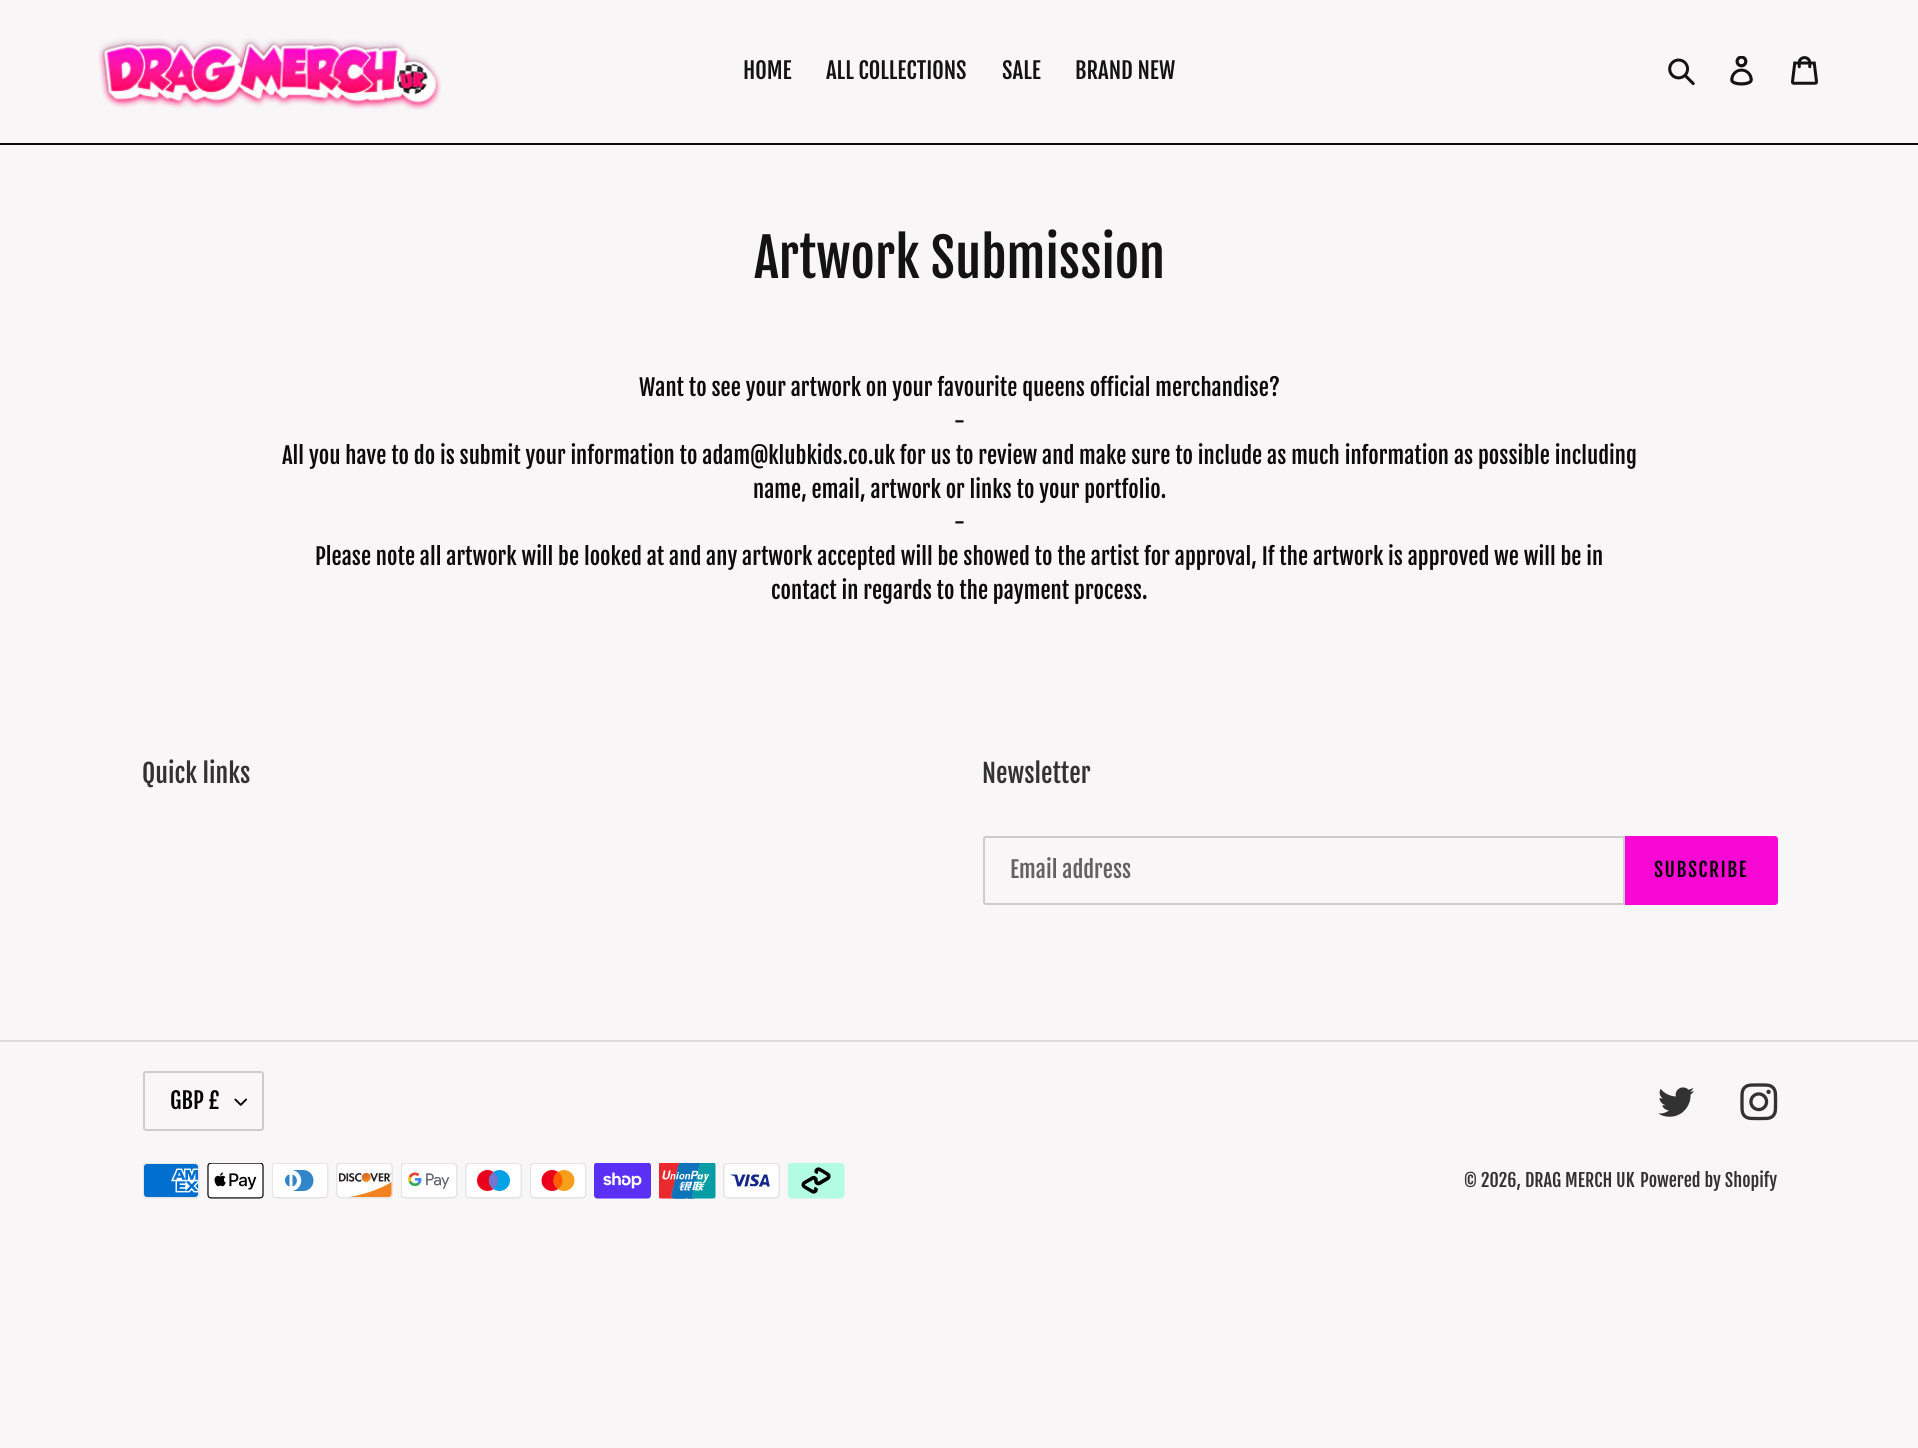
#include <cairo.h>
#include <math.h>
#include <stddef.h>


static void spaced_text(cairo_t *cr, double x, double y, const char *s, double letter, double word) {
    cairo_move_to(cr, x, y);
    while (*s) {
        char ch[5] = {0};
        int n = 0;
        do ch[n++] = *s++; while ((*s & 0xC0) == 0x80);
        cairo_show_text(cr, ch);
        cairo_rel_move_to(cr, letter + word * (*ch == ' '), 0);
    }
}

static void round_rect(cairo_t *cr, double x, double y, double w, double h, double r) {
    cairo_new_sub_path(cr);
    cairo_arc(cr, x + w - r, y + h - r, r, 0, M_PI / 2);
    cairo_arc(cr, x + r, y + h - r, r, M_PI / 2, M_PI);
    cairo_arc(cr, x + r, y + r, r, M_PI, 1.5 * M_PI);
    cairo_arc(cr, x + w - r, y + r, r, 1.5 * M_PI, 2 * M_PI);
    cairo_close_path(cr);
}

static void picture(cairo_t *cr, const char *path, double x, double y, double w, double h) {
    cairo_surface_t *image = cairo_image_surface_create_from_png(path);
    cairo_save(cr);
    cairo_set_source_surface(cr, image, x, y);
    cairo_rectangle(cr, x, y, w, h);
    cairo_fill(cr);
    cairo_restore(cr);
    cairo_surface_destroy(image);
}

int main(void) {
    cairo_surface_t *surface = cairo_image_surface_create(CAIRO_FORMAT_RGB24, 1918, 1448);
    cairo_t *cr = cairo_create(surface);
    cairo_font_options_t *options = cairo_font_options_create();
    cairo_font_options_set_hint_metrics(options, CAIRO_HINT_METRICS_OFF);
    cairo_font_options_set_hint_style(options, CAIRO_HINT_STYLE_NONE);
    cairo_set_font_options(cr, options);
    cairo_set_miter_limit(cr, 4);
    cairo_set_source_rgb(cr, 0.969, 0.961, 0.961);
    cairo_paint(cr);
    cairo_set_source_rgb(cr, 0.047, 0.043, 0.047);
    cairo_rectangle(cr, 0, 143, 1918, 2);
    cairo_fill(cr);
    picture(cr, "img1.png", 98, 38, 343, 72);
    cairo_select_font_face(cr, "Fjalla One", CAIRO_FONT_SLANT_NORMAL, CAIRO_FONT_WEIGHT_NORMAL);
    cairo_set_font_size(cr, 22.5);
    cairo_set_source_rgb(cr, 0.078, 0.075, 0.078);
    cairo_move_to(cr, 743, 79);
    cairo_show_text(cr, "HOME");
    cairo_move_to(cr, 826, 79);
    cairo_show_text(cr, "ALL COLLECTIONS");
    cairo_move_to(cr, 1002, 79);
    cairo_show_text(cr, "SALE");
    cairo_move_to(cr, 1075, 79);
    cairo_show_text(cr, "BRAND NEW");
    picture(cr, "img2.png", 1668, 58, 27, 28);
    picture(cr, "img3.png", 1730, 56, 23, 30);
    picture(cr, "img4.png", 1791, 56, 27, 29);
    cairo_set_font_size(cr, 52.5);
    cairo_move_to(cr, 754, 278);
    cairo_show_text(cr, "Artwork Submission");
    cairo_set_font_size(cr, 22.5);
    cairo_set_source_rgb(cr, 0.047, 0.043, 0.043);
    cairo_move_to(cr, 639, 396);
    cairo_show_text(cr, "Want to see your artwork on your favourite queens official merchandise?");
    cairo_move_to(cr, 954, 430);
    cairo_show_text(cr, "-");
    cairo_move_to(cr, 282, 464);
    cairo_show_text(cr, "All you have to do is submit your information to adam@klubkids.co.uk for us to review and make sure to include as much information as possible including");
    cairo_move_to(cr, 753, 498);
    cairo_show_text(cr, "name, email, artwork or links to your portfolio.");
    cairo_move_to(cr, 954, 531);
    cairo_show_text(cr, "-");
    cairo_move_to(cr, 315, 565);
    cairo_show_text(cr, "Please note all artwork will be looked at and any artwork accepted will be showed to the artist for approval, If the artwork is approved we will be in");
    cairo_move_to(cr, 771, 599);
    cairo_show_text(cr, "contact in regards to the payment process.");
    cairo_set_font_size(cr, 25.5);
    cairo_set_source_rgb(cr, 0.2, 0.196, 0.196);
    cairo_move_to(cr, 142, 783);
    cairo_show_text(cr, "Quick links");
    cairo_move_to(cr, 982, 783);
    cairo_show_text(cr, "Newsletter");
    cairo_new_path(cr);
    cairo_move_to(cr, 986, 837);
    cairo_line_to(cr, 1624, 837);
    cairo_line_to(cr, 1624, 904);
    cairo_line_to(cr, 986, 904);
    cairo_curve_to(cr, 985, 904, 984, 903, 984, 902);
    cairo_line_to(cr, 984, 839);
    cairo_curve_to(cr, 984, 838, 985, 837, 986, 837);
    cairo_close_path(cr);
    cairo_set_source_rgb(cr, 0.8, 0.8, 0.8);
    cairo_stroke(cr);
    cairo_set_font_size(cr, 22.5);
    cairo_set_source_rgb(cr, 0.388, 0.384, 0.384);
    cairo_move_to(cr, 1010, 878);
    cairo_show_text(cr, "Email address");
    cairo_set_source_rgb(cr, 0.976, 0.031, 0.835);
    cairo_new_path(cr);
    cairo_move_to(cr, 1625, 836);
    cairo_line_to(cr, 1775, 836);
    cairo_curve_to(cr, 1776.5, 836, 1778, 837.5, 1778, 839);
    cairo_line_to(cr, 1778, 902);
    cairo_curve_to(cr, 1778, 903.5, 1776.5, 905, 1775, 905);
    cairo_line_to(cr, 1625, 905);
    cairo_close_path(cr);
    cairo_fill(cr);
    cairo_set_font_size(cr, 19.5);
    cairo_set_source_rgb(cr, 0, 0, 0);
    spaced_text(cr, 1654, 877, "SUBSCRIBE", 1.5, 0);
    cairo_set_source_rgb(cr, 0.867, 0.867, 0.867);
    cairo_rectangle(cr, 0, 1040, 1918, 2);
    cairo_fill(cr);
    picture(cr, "img5.png", 234, 1098, 14, 8);
    round_rect(cr, 144, 1072, 119, 58, 2);
    cairo_set_source_rgb(cr, 0.8, 0.8, 0.8);
    cairo_stroke(cr);
    cairo_set_font_size(cr, 22.5);
    cairo_set_source_rgb(cr, 0, 0, 0);
    cairo_move_to(cr, 170, 1109);
    cairo_show_text(cr, "GBP £");
    picture(cr, "img6.png", 1658, 1087, 36, 30);
    picture(cr, "img7.png", 1740, 1083, 38, 38);
    picture(cr, "img8.png", 143, 1163, 57, 36);
    picture(cr, "img9.png", 207, 1163, 57, 36);
    picture(cr, "img10.png", 272, 1163, 57, 36);
    picture(cr, "img11.png", 336, 1163, 57, 36);
    picture(cr, "img12.png", 401, 1163, 57, 36);
    picture(cr, "img13.png", 465, 1163, 57, 36);
    picture(cr, "img14.png", 530, 1163, 57, 36);
    picture(cr, "img15.png", 594, 1163, 57, 36);
    picture(cr, "img16.png", 659, 1163, 57, 36);
    picture(cr, "img17.png", 723, 1163, 57, 36);
    picture(cr, "img18.png", 788, 1163, 57, 36);
    cairo_set_font_size(cr, 18);
    cairo_set_source_rgb(cr, 0.2, 0.196, 0.196);
    cairo_move_to(cr, 1464, 1187);
    cairo_show_text(cr, "© 2026, DRAG MERCH UK");
    cairo_move_to(cr, 1640, 1187);
    cairo_show_text(cr, "Powered by Shopify");
    cairo_surface_write_to_png(surface, "page.png");
    cairo_font_options_destroy(options);
    cairo_destroy(cr);
    cairo_surface_destroy(surface);
    return 0;
}
